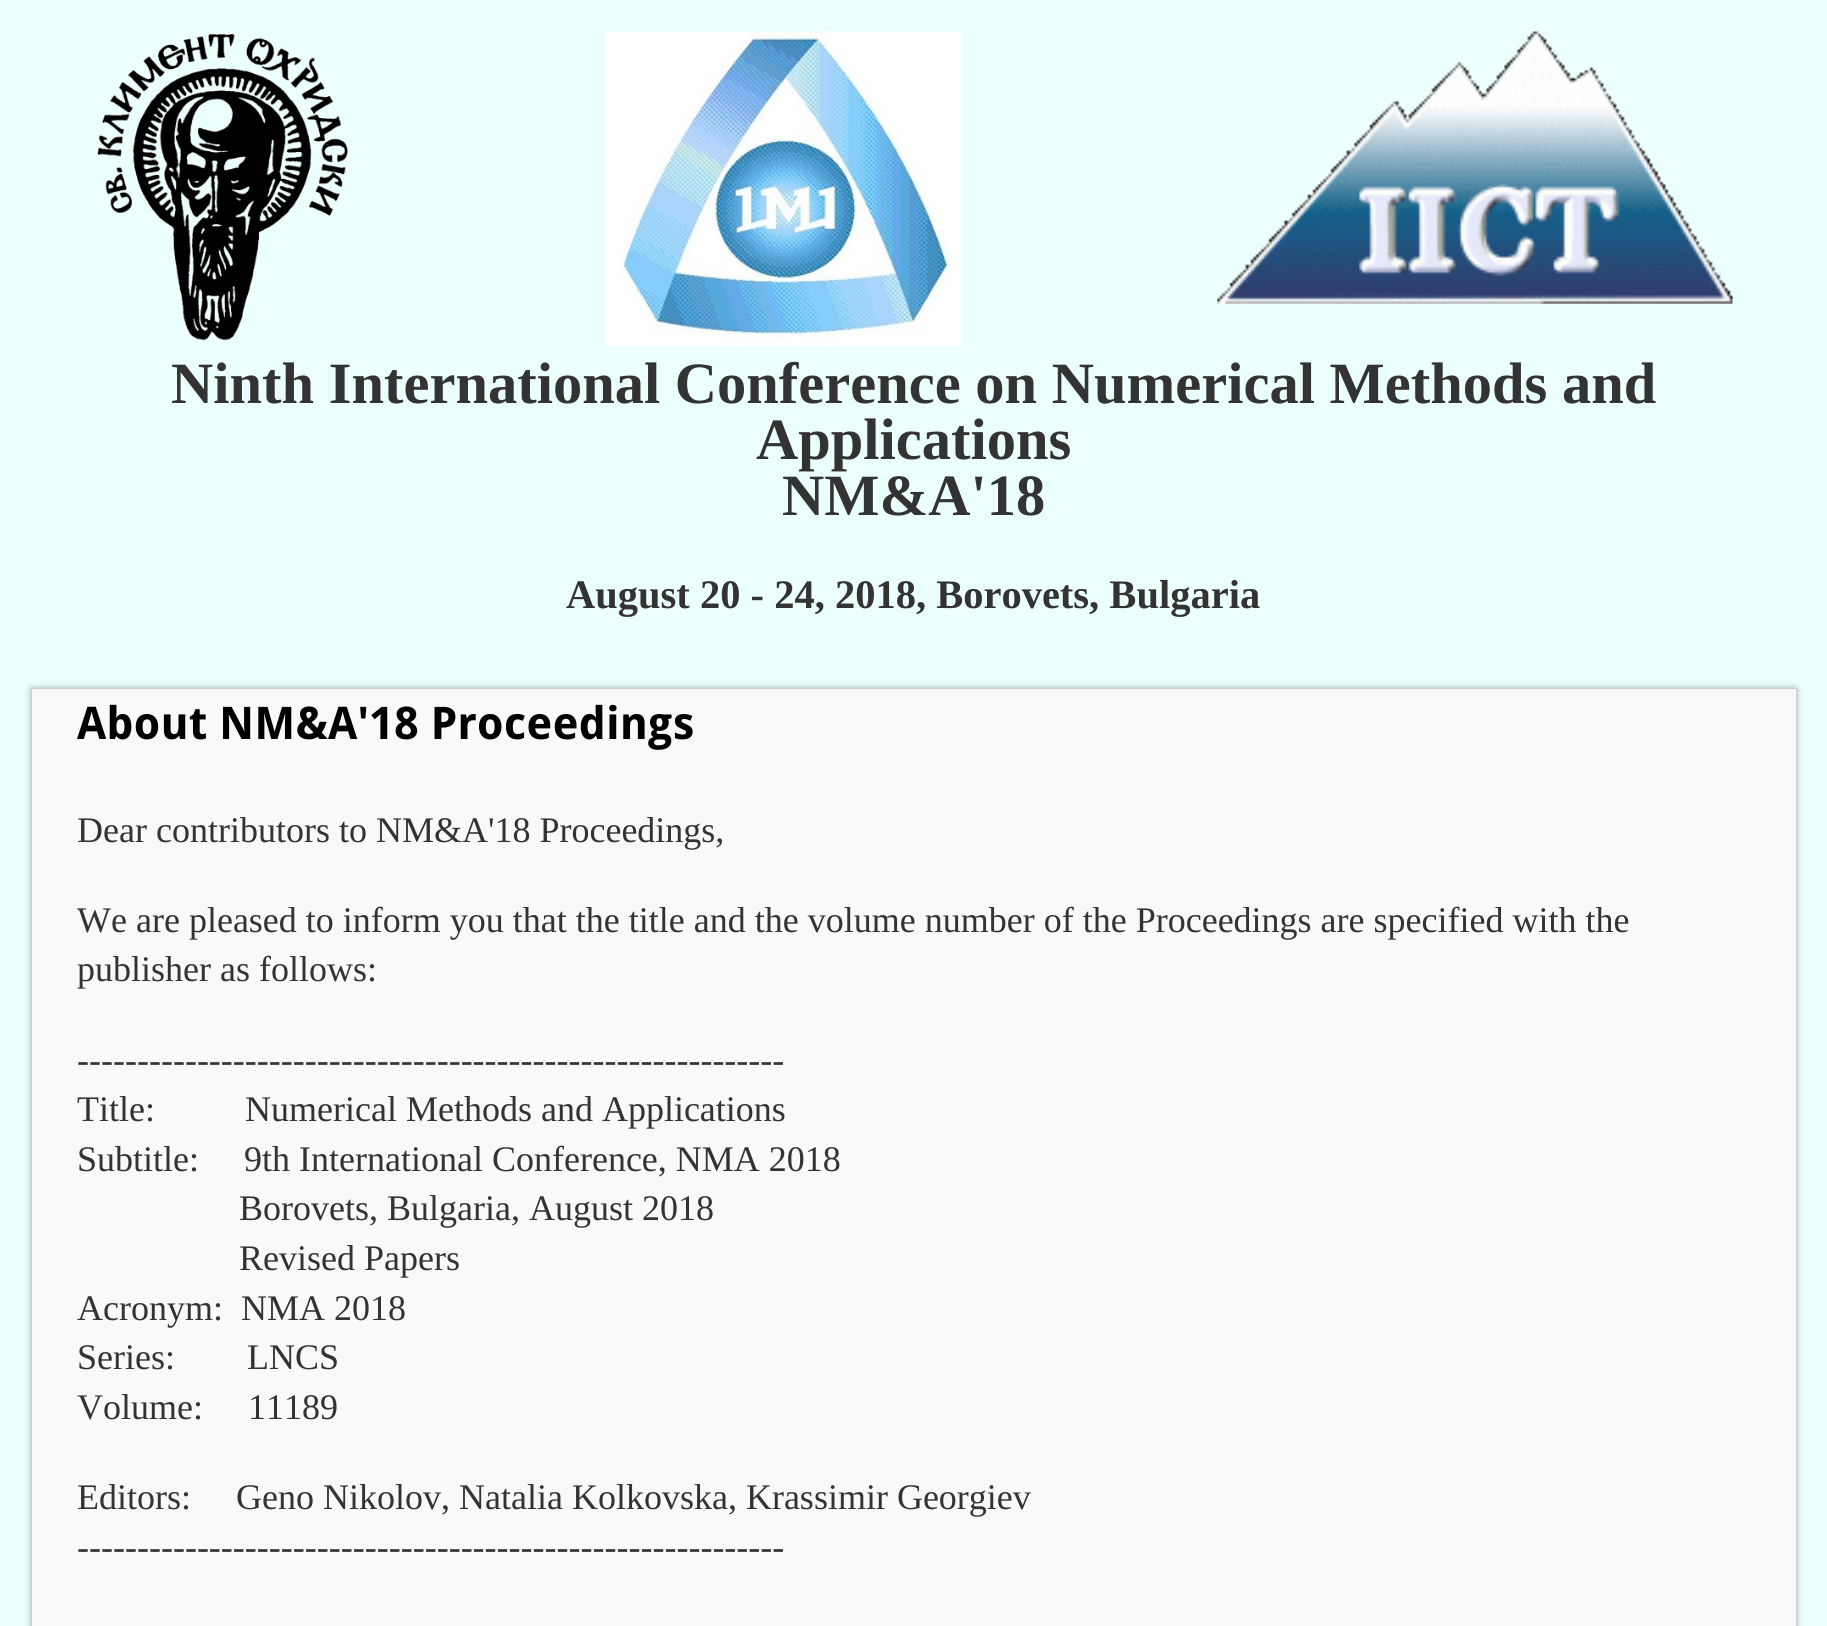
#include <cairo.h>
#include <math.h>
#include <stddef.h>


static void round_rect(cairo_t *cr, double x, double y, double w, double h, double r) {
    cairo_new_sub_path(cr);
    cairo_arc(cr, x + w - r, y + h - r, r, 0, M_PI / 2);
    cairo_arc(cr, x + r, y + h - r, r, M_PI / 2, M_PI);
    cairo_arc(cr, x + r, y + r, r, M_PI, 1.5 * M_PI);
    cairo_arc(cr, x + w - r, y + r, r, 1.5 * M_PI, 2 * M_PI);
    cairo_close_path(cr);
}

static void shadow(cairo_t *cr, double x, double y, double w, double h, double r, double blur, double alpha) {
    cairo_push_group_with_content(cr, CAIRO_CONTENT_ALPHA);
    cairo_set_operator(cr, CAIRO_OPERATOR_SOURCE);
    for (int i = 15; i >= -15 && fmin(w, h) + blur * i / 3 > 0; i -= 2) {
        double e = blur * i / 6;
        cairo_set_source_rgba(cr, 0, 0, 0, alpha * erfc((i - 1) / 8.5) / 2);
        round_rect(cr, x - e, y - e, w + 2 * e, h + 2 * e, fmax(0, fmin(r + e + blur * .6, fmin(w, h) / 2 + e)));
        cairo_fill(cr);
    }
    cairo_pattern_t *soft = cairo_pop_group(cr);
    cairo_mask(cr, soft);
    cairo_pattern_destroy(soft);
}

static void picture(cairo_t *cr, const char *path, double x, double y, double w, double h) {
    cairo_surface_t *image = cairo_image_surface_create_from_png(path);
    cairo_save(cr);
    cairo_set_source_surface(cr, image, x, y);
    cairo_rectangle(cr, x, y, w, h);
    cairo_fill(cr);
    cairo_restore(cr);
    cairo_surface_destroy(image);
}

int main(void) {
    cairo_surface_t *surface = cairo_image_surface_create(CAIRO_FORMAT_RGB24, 1827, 1626);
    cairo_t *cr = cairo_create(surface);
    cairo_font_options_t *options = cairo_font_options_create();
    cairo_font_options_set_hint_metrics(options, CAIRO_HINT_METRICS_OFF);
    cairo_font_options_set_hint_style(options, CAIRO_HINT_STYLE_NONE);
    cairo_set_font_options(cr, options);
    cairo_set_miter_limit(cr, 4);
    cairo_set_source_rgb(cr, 0.918, 1, 0.992);
    cairo_paint(cr);
    picture(cr, "img1.png", 97, 33, 251, 308);
    picture(cr, "img2.png", 605, 31, 356, 316);
    picture(cr, "img3.png", 1217, 31, 516, 273);
    cairo_select_font_face(cr, "Liberation Serif", CAIRO_FONT_SLANT_NORMAL, CAIRO_FONT_WEIGHT_BOLD);
    cairo_set_font_size(cr, 58.5);
    cairo_set_source_rgb(cr, 0.2, 0.2, 0.2);
    cairo_move_to(cr, 171, 403);
    cairo_show_text(cr, "Ninth International Conference on Numerical Methods and");
    cairo_move_to(cr, 756, 459);
    cairo_show_text(cr, "Applications");
    cairo_move_to(cr, 782, 515);
    cairo_show_text(cr, "NM&A'18");
    cairo_set_font_size(cr, 40.5);
    cairo_move_to(cr, 566, 608);
    cairo_show_text(cr, "August 20 - 24, 2018, Borovets, Bulgaria");
    cairo_set_source_rgb(cr, 0.6, 0.6, 0.6);
    shadow(cr, 32, 689, 1764, 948, 0, 3.5, 1);
    cairo_set_source_rgb(cr, 0.976, 0.976, 0.976);
    cairo_rectangle(cr, 32, 689, 1764, 937);
    cairo_fill(cr);
    cairo_select_font_face(cr, "Droid Sans", CAIRO_FONT_SLANT_NORMAL, CAIRO_FONT_WEIGHT_BOLD);
    cairo_set_font_size(cr, 45);
    cairo_set_source_rgb(cr, 0, 0, 0);
    cairo_move_to(cr, 77, 739);
    cairo_show_text(cr, "About NM&A'18 Proceedings");
    cairo_select_font_face(cr, "Liberation Serif", CAIRO_FONT_SLANT_NORMAL, CAIRO_FONT_WEIGHT_NORMAL);
    cairo_set_font_size(cr, 36);
    cairo_set_source_rgb(cr, 0.2, 0.2, 0.2);
    cairo_move_to(cr, 77, 842);
    cairo_show_text(cr, "Dear contributors to NM&A'18 Proceedings,");
    cairo_move_to(cr, 77, 932);
    cairo_show_text(cr, "We are pleased to inform you that the title and the volume number of the Proceedings are specified with the");
    cairo_move_to(cr, 77, 981);
    cairo_show_text(cr, "publisher as follows:");
    cairo_move_to(cr, 77, 1072);
    cairo_show_text(cr, "-----------------------------------------------------------");
    cairo_move_to(cr, 77, 1121);
    cairo_show_text(cr, "Title:          Numerical Methods and Applications");
    cairo_move_to(cr, 77, 1171);
    cairo_show_text(cr, "Subtitle:     9th International Conference, NMA 2018");
    cairo_move_to(cr, 239, 1220);
    cairo_show_text(cr, "Borovets, Bulgaria, August 2018");
    cairo_move_to(cr, 239, 1270);
    cairo_show_text(cr, "Revised Papers");
    cairo_move_to(cr, 77, 1320);
    cairo_show_text(cr, "Acronym:  NMA 2018");
    cairo_move_to(cr, 77, 1369);
    cairo_show_text(cr, "Series:        LNCS");
    cairo_move_to(cr, 77, 1419);
    cairo_show_text(cr, "Volume:     11189");
    cairo_move_to(cr, 77, 1509);
    cairo_show_text(cr, "Editors:     Geno Nikolov, Natalia Kolkovska, Krassimir Georgiev");
    cairo_move_to(cr, 77, 1559);
    cairo_show_text(cr, "-----------------------------------------------------------");
    cairo_surface_write_to_png(surface, "page.png");
    cairo_font_options_destroy(options);
    cairo_destroy(cr);
    cairo_surface_destroy(surface);
    return 0;
}
